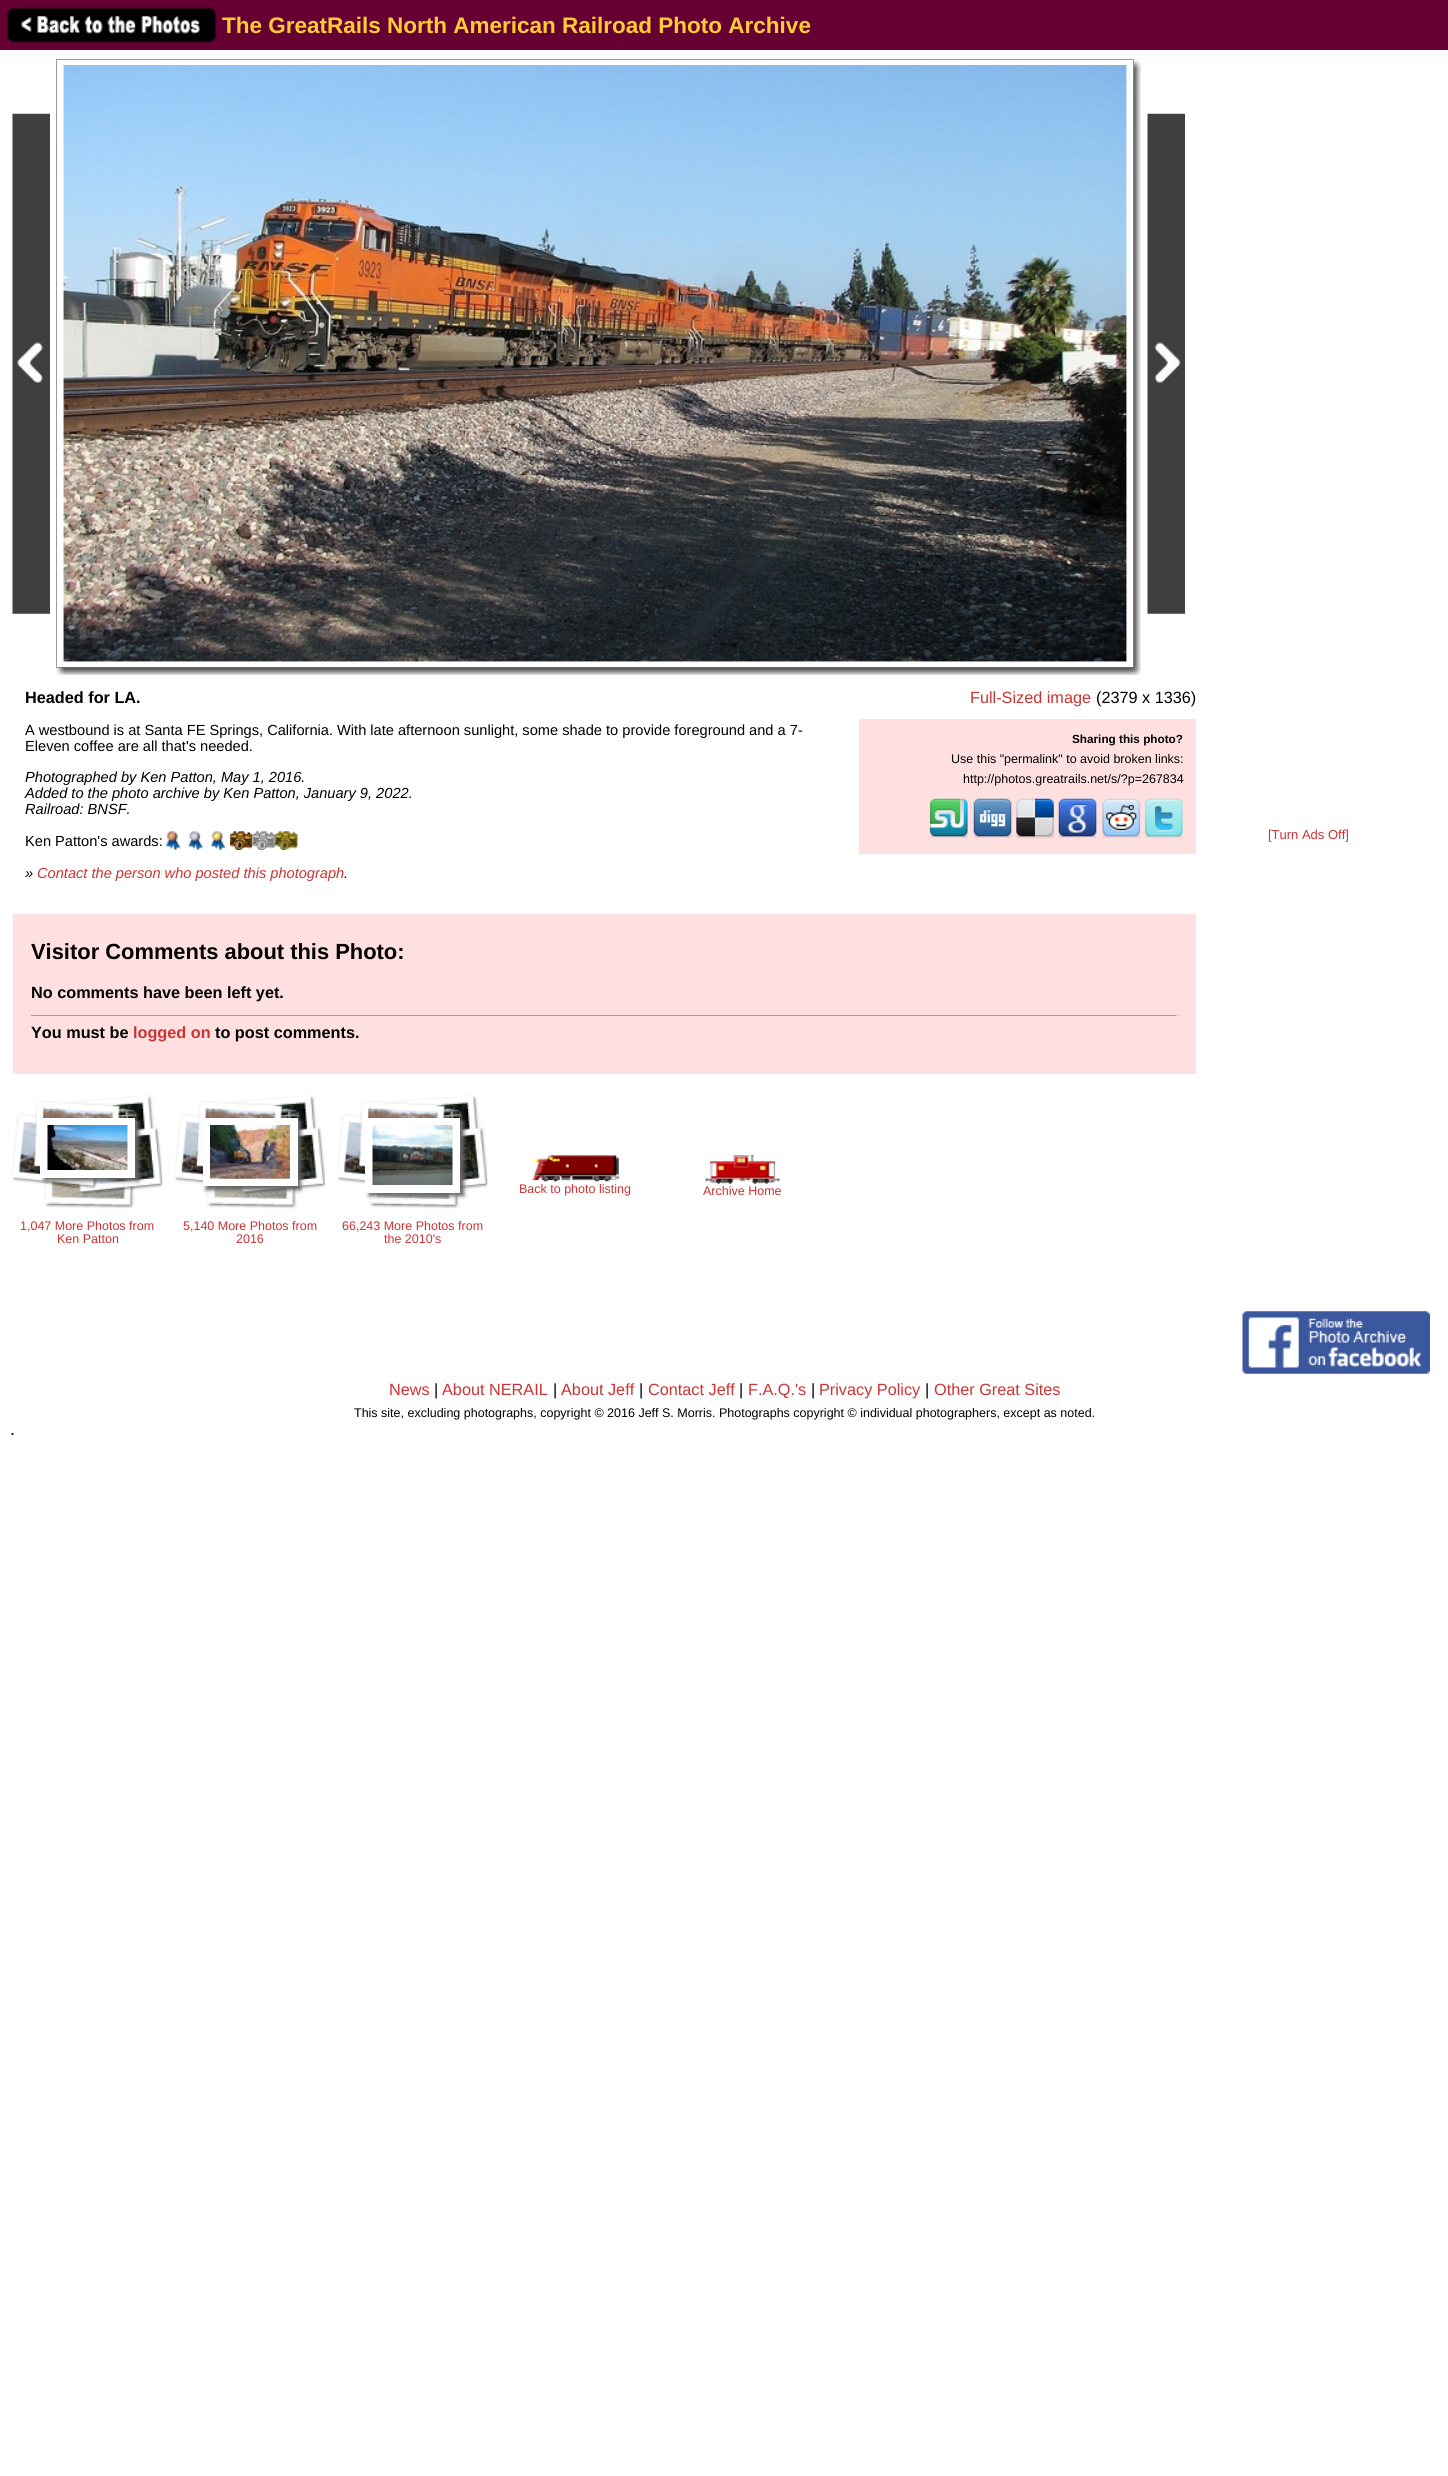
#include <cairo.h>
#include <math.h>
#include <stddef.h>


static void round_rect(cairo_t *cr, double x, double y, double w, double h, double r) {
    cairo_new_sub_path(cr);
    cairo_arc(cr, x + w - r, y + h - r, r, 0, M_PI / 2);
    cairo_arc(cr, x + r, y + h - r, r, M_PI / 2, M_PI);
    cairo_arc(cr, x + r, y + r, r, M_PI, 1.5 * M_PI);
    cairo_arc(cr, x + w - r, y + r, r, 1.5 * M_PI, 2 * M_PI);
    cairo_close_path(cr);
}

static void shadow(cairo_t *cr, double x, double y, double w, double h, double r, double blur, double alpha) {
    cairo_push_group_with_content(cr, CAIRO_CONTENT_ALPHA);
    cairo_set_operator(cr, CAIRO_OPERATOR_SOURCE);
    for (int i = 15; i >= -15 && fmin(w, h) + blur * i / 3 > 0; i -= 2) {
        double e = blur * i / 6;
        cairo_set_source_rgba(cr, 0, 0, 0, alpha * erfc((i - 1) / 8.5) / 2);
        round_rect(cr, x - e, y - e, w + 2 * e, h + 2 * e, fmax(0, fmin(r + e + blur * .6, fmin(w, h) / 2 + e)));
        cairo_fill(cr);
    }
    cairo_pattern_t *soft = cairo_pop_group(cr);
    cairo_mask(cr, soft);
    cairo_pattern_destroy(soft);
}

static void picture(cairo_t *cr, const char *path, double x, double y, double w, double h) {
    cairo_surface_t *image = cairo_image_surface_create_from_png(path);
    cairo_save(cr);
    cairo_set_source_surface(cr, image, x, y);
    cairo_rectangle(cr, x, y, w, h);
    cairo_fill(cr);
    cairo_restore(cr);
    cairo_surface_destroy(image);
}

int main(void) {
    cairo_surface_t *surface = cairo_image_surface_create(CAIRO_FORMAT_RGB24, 1448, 2476);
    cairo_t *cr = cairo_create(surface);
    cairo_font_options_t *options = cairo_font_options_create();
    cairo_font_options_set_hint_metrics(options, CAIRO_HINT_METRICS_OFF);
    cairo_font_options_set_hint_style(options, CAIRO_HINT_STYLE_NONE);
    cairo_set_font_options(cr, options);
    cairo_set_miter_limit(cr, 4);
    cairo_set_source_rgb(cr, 1, 1, 1);
    cairo_paint(cr);
    cairo_set_source_rgb(cr, 0.4, 0, 0.2);
    cairo_rectangle(cr, 0, 0, 1448, 50);
    cairo_fill(cr);
    picture(cr, "img1.png", 7, 7, 210, 36);
    cairo_select_font_face(cr, "Liberation Sans", CAIRO_FONT_SLANT_NORMAL, CAIRO_FONT_WEIGHT_BOLD);
    cairo_set_font_size(cr, 22.5);
    cairo_set_source_rgb(cr, 1, 0.8, 0.2);
    cairo_move_to(cr, 222, 33);
    cairo_show_text(cr, "The GreatRails North American Railroad Photo Archive");
    picture(cr, "img2.png", 12, 113, 38, 501);
    cairo_rectangle(cr, 56.5, 59.5, 1077, 608);
    cairo_set_source_rgb(cr, 0.604, 0.604, 0.604);
    cairo_set_line_width(cr, 1);
    cairo_stroke(cr);
    picture(cr, "img3.png", 63, 65, 1064, 597);
    picture(cr, "img4.png", 63, 65, 1064, 597);
    picture(cr, "img5.png", 1133, 59, 8, 609);
    picture(cr, "img6.png", 1147, 113, 38, 501);
    picture(cr, "img7.png", 56, 667, 1078, 8);
    picture(cr, "img8.png", 1133, 667, 8, 8);
    cairo_set_font_size(cr, 16.25);
    cairo_set_source_rgb(cr, 0, 0, 0);
    cairo_move_to(cr, 25, 703);
    cairo_show_text(cr, "Headed for LA.");
    cairo_select_font_face(cr, "Liberation Sans", CAIRO_FONT_SLANT_NORMAL, CAIRO_FONT_WEIGHT_NORMAL);
    cairo_set_font_size(cr, 14.62);
    cairo_move_to(cr, 25, 735);
    cairo_show_text(cr, "A westbound is at Santa FE Springs, California. With late afternoon sunlight, some shade to provide foreground and a 7-");
    cairo_move_to(cr, 25, 751);
    cairo_show_text(cr, "Eleven coffee are all that's needed.");
    cairo_select_font_face(cr, "Liberation Sans", CAIRO_FONT_SLANT_ITALIC, CAIRO_FONT_WEIGHT_NORMAL);
    cairo_move_to(cr, 25, 782);
    cairo_show_text(cr, "Photographed by Ken Patton, May 1, 2016.");
    cairo_move_to(cr, 25, 798);
    cairo_show_text(cr, "Added to the photo archive by Ken Patton, January 9, 2022.");
    cairo_move_to(cr, 25, 814);
    cairo_show_text(cr, "Railroad: BNSF.");
    cairo_select_font_face(cr, "Liberation Sans", CAIRO_FONT_SLANT_NORMAL, CAIRO_FONT_WEIGHT_NORMAL);
    cairo_move_to(cr, 25, 846);
    cairo_show_text(cr, "Ken Patton's awards:");
    picture(cr, "img9.png", 166, 831, 15, 19);
    picture(cr, "img10.png", 188, 831, 15, 19);
    picture(cr, "img11.png", 211, 831, 15, 19);
    picture(cr, "img12.png", 230, 831, 23, 19);
    picture(cr, "img13.png", 252, 831, 23, 19);
    picture(cr, "img14.png", 275, 831, 23, 19);
    cairo_select_font_face(cr, "Liberation Sans", CAIRO_FONT_SLANT_ITALIC, CAIRO_FONT_WEIGHT_NORMAL);
    cairo_move_to(cr, 25, 878);
    cairo_show_text(cr, "»");
    cairo_set_source_rgb(cr, 0.8, 0.2, 0.2);
    cairo_move_to(cr, 37, 878);
    cairo_show_text(cr, "Contact the person who posted this photograph");
    cairo_set_source_rgb(cr, 0, 0, 0);
    cairo_move_to(cr, 344, 878);
    cairo_show_text(cr, ".");
    cairo_select_font_face(cr, "Liberation Sans", CAIRO_FONT_SLANT_NORMAL, CAIRO_FONT_WEIGHT_NORMAL);
    cairo_set_font_size(cr, 16.25);
    cairo_set_source_rgb(cr, 0.8, 0.2, 0.2);
    cairo_move_to(cr, 970, 703);
    cairo_show_text(cr, "Full-Sized image");
    cairo_set_source_rgb(cr, 0, 0, 0);
    cairo_move_to(cr, 1096, 703);
    cairo_show_text(cr, "(2379 x 1336)");
    cairo_set_source_rgb(cr, 1, 0.878, 0.878);
    cairo_rectangle(cr, 859, 719, 337, 135);
    cairo_fill(cr);
    cairo_select_font_face(cr, "Liberation Sans", CAIRO_FONT_SLANT_NORMAL, CAIRO_FONT_WEIGHT_BOLD);
    cairo_set_font_size(cr, 11.75);
    cairo_set_source_rgb(cr, 0, 0, 0);
    cairo_move_to(cr, 1072, 743);
    cairo_show_text(cr, "Sharing this photo?");
    cairo_select_font_face(cr, "Liberation Sans", CAIRO_FONT_SLANT_NORMAL, CAIRO_FONT_WEIGHT_NORMAL);
    cairo_set_font_size(cr, 12.5);
    cairo_move_to(cr, 951, 763);
    cairo_show_text(cr, "Use this \"permalink\" to avoid broken links:");
    cairo_move_to(cr, 963, 783);
    cairo_show_text(cr, "http://photos.greatrails.net/s/?p=267834");
    picture(cr, "img15.png", 929, 798, 39, 40);
    picture(cr, "img16.png", 973, 798, 39, 40);
    picture(cr, "img17.png", 1015, 798, 40, 41);
    picture(cr, "img18.png", 1058, 798, 39, 40);
    picture(cr, "img19.png", 1102, 798, 39, 40);
    picture(cr, "img20.png", 1144, 798, 39, 40);
    cairo_set_font_size(cr, 13);
    cairo_set_source_rgb(cr, 0.8, 0.2, 0.2);
    cairo_move_to(cr, 1268, 839);
    cairo_show_text(cr, "[Turn Ads Off]");
    cairo_set_source_rgb(cr, 1, 0.878, 0.878);
    cairo_rectangle(cr, 13, 914, 1183, 160);
    cairo_fill(cr);
    cairo_select_font_face(cr, "Liberation Sans", CAIRO_FONT_SLANT_NORMAL, CAIRO_FONT_WEIGHT_BOLD);
    cairo_set_font_size(cr, 21.9);
    cairo_set_source_rgb(cr, 0, 0, 0);
    cairo_move_to(cr, 31, 959);
    cairo_show_text(cr, "Visitor Comments about this Photo:");
    cairo_set_font_size(cr, 16.25);
    cairo_move_to(cr, 31, 998);
    cairo_show_text(cr, "No comments have been left yet.");
    cairo_set_source_rgb(cr, 0.624, 0.624, 0.624);
    cairo_rectangle(cr, 31, 1015, 1147, 1);
    cairo_fill(cr);
    cairo_set_source_rgb(cr, 0.933, 0.933, 0.933);
    cairo_rectangle(cr, 1176, 1015, 1, 1);
    cairo_fill(cr);
    cairo_set_source_rgb(cr, 0, 0, 0);
    cairo_move_to(cr, 31, 1038);
    cairo_show_text(cr, "You must be");
    cairo_set_source_rgb(cr, 0.8, 0.2, 0.2);
    cairo_move_to(cr, 133, 1038);
    cairo_show_text(cr, "logged on");
    cairo_set_source_rgb(cr, 0, 0, 0);
    cairo_move_to(cr, 215, 1038);
    cairo_show_text(cr, "to post comments.");
    picture(cr, "img21.png", 532, 1155, 87, 27);
    cairo_select_font_face(cr, "Liberation Sans", CAIRO_FONT_SLANT_NORMAL, CAIRO_FONT_WEIGHT_NORMAL);
    cairo_set_font_size(cr, 12.5);
    cairo_set_source_rgb(cr, 0.8, 0.2, 0.2);
    cairo_move_to(cr, 519, 1193);
    cairo_show_text(cr, "Back to photo listing");
    picture(cr, "img22.png", 705, 1155, 75, 29);
    cairo_move_to(cr, 703, 1195);
    cairo_show_text(cr, "Archive Home");
    picture(cr, "img23.png", 12, 1095, 151, 114);
    cairo_set_source_rgb(cr, 0.4, 0.4, 0.4);
    shadow(cr, 44, 1121, 95, 60, 0, 2, 1);
    cairo_set_source_rgb(cr, 1, 1, 1);
    cairo_rectangle(cr, 40, 1118, 95, 60);
    cairo_fill(cr);
    picture(cr, "img24.png", 47, 1125, 81, 45);
    cairo_set_source_rgb(cr, 0.8, 0.2, 0.2);
    cairo_move_to(cr, 20, 1230);
    cairo_show_text(cr, "1,047 More Photos from");
    cairo_move_to(cr, 57, 1243);
    cairo_show_text(cr, "Ken Patton");
    picture(cr, "img25.png", 175, 1095, 150, 114);
    cairo_set_source_rgb(cr, 0.4, 0.4, 0.4);
    shadow(cr, 206, 1121, 95, 69, 0, 2, 1);
    cairo_set_source_rgb(cr, 1, 1, 1);
    cairo_rectangle(cr, 203, 1118, 95, 68);
    cairo_fill(cr);
    picture(cr, "img26.png", 210, 1125, 80, 54);
    cairo_set_source_rgb(cr, 0.8, 0.2, 0.2);
    cairo_move_to(cr, 183, 1230);
    cairo_show_text(cr, "5,140 More Photos from");
    cairo_move_to(cr, 236, 1243);
    cairo_show_text(cr, "2016");
    picture(cr, "img27.png", 337, 1095, 151, 114);
    cairo_set_source_rgb(cr, 0.4, 0.4, 0.4);
    shadow(cr, 369, 1121, 95, 75, 0, 2, 1);
    cairo_set_source_rgb(cr, 1, 1, 1);
    cairo_rectangle(cr, 365, 1118, 95, 75);
    cairo_fill(cr);
    picture(cr, "img28.png", 372, 1125, 81, 60);
    cairo_set_source_rgb(cr, 0.8, 0.2, 0.2);
    cairo_move_to(cr, 342, 1230);
    cairo_show_text(cr, "66,243 More Photos from");
    cairo_move_to(cr, 384, 1243);
    cairo_show_text(cr, "the 2010's");
    picture(cr, "img29.png", 1242, 1311, 188, 63);
    cairo_set_font_size(cr, 16.25);
    cairo_move_to(cr, 389, 1395);
    cairo_show_text(cr, "News");
    cairo_set_source_rgb(cr, 0, 0, 0);
    cairo_move_to(cr, 434, 1395);
    cairo_show_text(cr, "|");
    cairo_set_source_rgb(cr, 0.8, 0.2, 0.2);
    cairo_move_to(cr, 442, 1395);
    cairo_show_text(cr, "About NERAIL");
    cairo_set_source_rgb(cr, 0, 0, 0);
    cairo_move_to(cr, 553, 1395);
    cairo_show_text(cr, "|");
    cairo_set_source_rgb(cr, 0.8, 0.2, 0.2);
    cairo_move_to(cr, 561, 1395);
    cairo_show_text(cr, "About Jeff");
    cairo_set_source_rgb(cr, 0, 0, 0);
    cairo_move_to(cr, 639, 1395);
    cairo_show_text(cr, "|");
    cairo_set_source_rgb(cr, 0.8, 0.2, 0.2);
    cairo_move_to(cr, 648, 1395);
    cairo_show_text(cr, "Contact Jeff");
    cairo_set_source_rgb(cr, 0, 0, 0);
    cairo_move_to(cr, 739, 1395);
    cairo_show_text(cr, "|");
    cairo_set_source_rgb(cr, 0.8, 0.2, 0.2);
    cairo_move_to(cr, 748, 1395);
    cairo_show_text(cr, "F.A.Q.'s");
    cairo_set_source_rgb(cr, 0, 0, 0);
    cairo_move_to(cr, 811, 1395);
    cairo_show_text(cr, "|");
    cairo_set_source_rgb(cr, 0.8, 0.2, 0.2);
    cairo_move_to(cr, 819, 1395);
    cairo_show_text(cr, "Privacy Policy");
    cairo_set_source_rgb(cr, 0, 0, 0);
    cairo_move_to(cr, 925, 1395);
    cairo_show_text(cr, "|");
    cairo_set_source_rgb(cr, 0.8, 0.2, 0.2);
    cairo_move_to(cr, 934, 1395);
    cairo_show_text(cr, "Other Great Sites");
    cairo_set_font_size(cr, 12.5);
    cairo_set_source_rgb(cr, 0, 0, 0);
    cairo_move_to(cr, 354, 1417);
    cairo_show_text(cr, "This site, excluding photographs, copyright © 2016 Jeff S. Morris. Photographs copyright © individual photographers, except as noted.");
    cairo_set_font_size(cr, 18);
    cairo_move_to(cr, 10, 1435);
    cairo_show_text(cr, ".");
    cairo_surface_write_to_png(surface, "page.png");
    cairo_font_options_destroy(options);
    cairo_destroy(cr);
    cairo_surface_destroy(surface);
    return 0;
}
